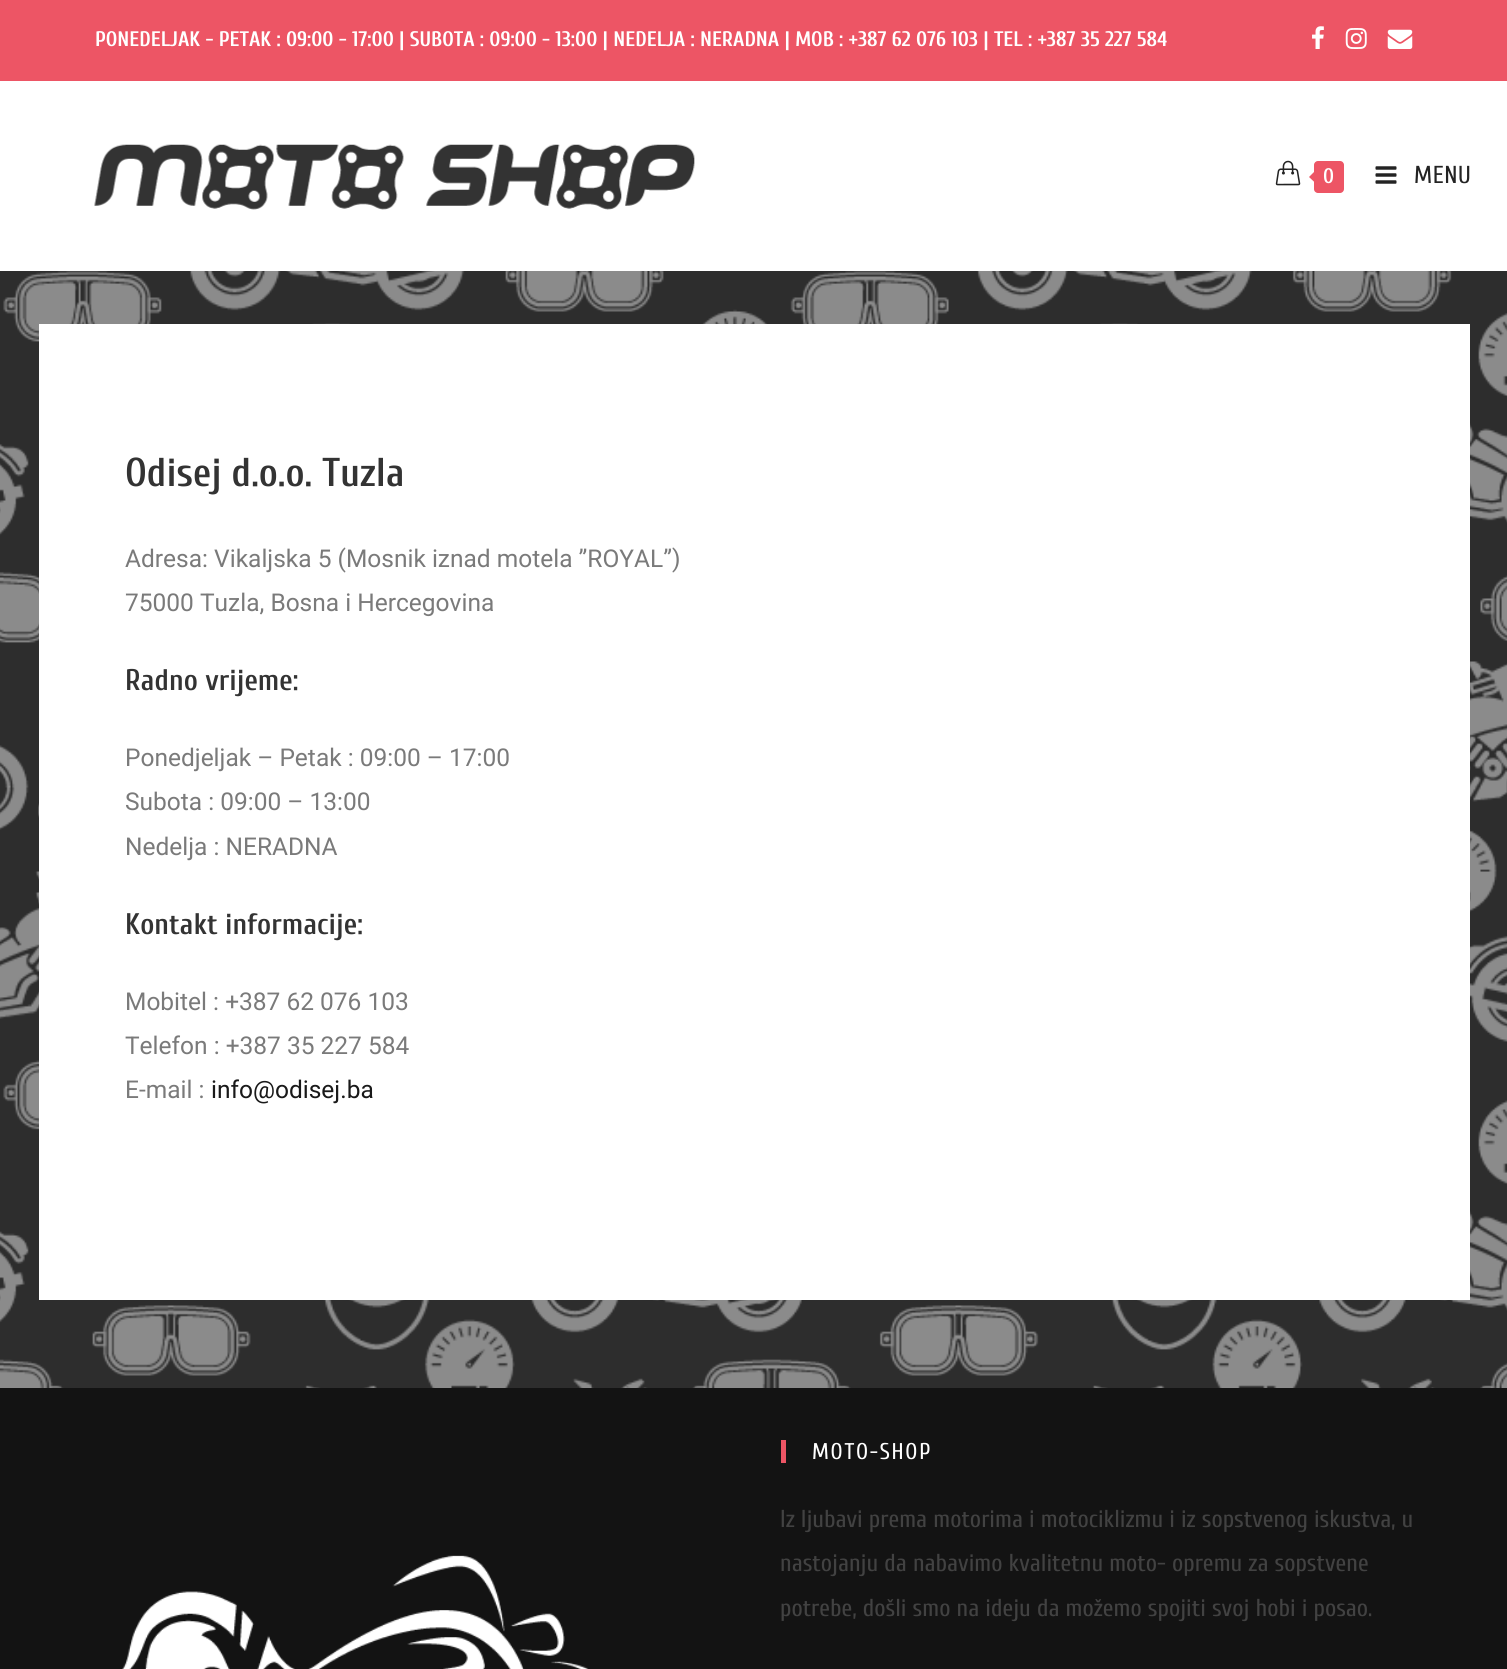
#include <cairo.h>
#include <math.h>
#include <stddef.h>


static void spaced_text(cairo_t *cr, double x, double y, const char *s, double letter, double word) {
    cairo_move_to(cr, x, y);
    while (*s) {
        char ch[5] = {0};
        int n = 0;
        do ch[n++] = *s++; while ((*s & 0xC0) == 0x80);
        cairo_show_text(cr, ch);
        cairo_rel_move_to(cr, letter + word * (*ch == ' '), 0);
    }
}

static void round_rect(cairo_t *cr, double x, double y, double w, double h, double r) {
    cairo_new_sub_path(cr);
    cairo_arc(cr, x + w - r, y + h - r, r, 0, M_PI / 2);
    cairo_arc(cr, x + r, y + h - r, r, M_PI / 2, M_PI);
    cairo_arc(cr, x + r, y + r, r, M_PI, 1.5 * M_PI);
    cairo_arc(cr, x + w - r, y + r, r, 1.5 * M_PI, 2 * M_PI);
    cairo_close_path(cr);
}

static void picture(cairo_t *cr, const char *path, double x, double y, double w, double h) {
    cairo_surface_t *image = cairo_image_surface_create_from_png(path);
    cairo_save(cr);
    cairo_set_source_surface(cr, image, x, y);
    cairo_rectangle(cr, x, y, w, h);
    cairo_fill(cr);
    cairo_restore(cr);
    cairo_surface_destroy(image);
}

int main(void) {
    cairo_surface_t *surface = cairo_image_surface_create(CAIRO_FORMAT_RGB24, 1507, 1669);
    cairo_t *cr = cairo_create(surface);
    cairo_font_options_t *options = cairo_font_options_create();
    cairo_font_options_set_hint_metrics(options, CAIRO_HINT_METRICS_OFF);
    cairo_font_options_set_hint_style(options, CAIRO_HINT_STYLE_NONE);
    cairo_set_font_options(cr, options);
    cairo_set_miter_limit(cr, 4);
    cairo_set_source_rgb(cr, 1, 1, 1);
    cairo_paint(cr);
    picture(cr, "img1.png", 0, 271, 1507, 1117);
    cairo_set_source_rgb(cr, 0.929, 0.333, 0.396);
    cairo_rectangle(cr, 0, 0, 1507, 81);
    cairo_fill(cr);
    cairo_select_font_face(cr, "Cuprum", CAIRO_FONT_SLANT_NORMAL, CAIRO_FONT_WEIGHT_BOLD);
    cairo_set_font_size(cr, 21);
    cairo_set_source_rgb(cr, 1, 1, 1);
    cairo_move_to(cr, 95, 46);
    cairo_show_text(cr, "PONEDELJAK - PETAK : 09:00 - 17:00 | SUBOTA : 09:00 - 13:00 | NEDELJA : NERADNA | MOB : +387 62 076 103 | TEL : +387 35 227 584");
    picture(cr, "img2.png", 1312, 26, 12, 23);
    picture(cr, "img3.png", 1345, 28, 22, 21);
    picture(cr, "img4.png", 1387, 29, 26, 20);
    picture(cr, "img5.png", 94, 144, 601, 66);
    picture(cr, "img6.png", 1275, 160, 26, 26);
    cairo_set_source_rgb(cr, 0.929, 0.333, 0.396);
    round_rect(cr, 1314, 161, 30, 32, 4);
    cairo_fill(cr);
    cairo_new_path(cr);
    cairo_move_to(cr, 1318, 168);
    cairo_line_to(cr, 1318, 185.5);
    cairo_line_to(cr, 1309, 177);
    cairo_close_path(cr);
    cairo_fill(cr);
    cairo_select_font_face(cr, "Cuprum SemiBold", CAIRO_FONT_SLANT_NORMAL, CAIRO_FONT_WEIGHT_NORMAL);
    cairo_set_source_rgb(cr, 1, 1, 1);
    spaced_text(cr, 1323, 183, "0", 0.5, 0);
    picture(cr, "img7.png", 1375, 166, 22, 18);
    cairo_select_font_face(cr, "Cuprum", CAIRO_FONT_SLANT_NORMAL, CAIRO_FONT_WEIGHT_NORMAL);
    cairo_set_font_size(cr, 24.5);
    cairo_set_source_rgb(cr, 0.137, 0.137, 0.137);
    spaced_text(cr, 1414, 183, "MENU", 0.5, 0);
    cairo_set_source_rgb(cr, 1, 1, 1);
    cairo_rectangle(cr, 39, 324, 1431, 976);
    cairo_fill(cr);
    cairo_select_font_face(cr, "Cuprum SemiBold", CAIRO_FONT_SLANT_NORMAL, CAIRO_FONT_WEIGHT_NORMAL);
    cairo_set_font_size(cr, 40.25);
    cairo_set_source_rgb(cr, 0.2, 0.2, 0.2);
    cairo_move_to(cr, 125, 486);
    cairo_show_text(cr, "Odisej d.o.o. Tuzla");
    cairo_select_font_face(cr, "Roboto", CAIRO_FONT_SLANT_NORMAL, CAIRO_FONT_WEIGHT_NORMAL);
    cairo_set_font_size(cr, 24.5);
    cairo_set_source_rgb(cr, 0.478, 0.478, 0.478);
    cairo_move_to(cr, 125, 567);
    cairo_show_text(cr, "Adresa: Vikaljska 5 (Mosnik iznad motela ”ROYAL”)");
    cairo_move_to(cr, 125, 611);
    cairo_show_text(cr, "75000 Tuzla, Bosna i Hercegovina");
    cairo_select_font_face(cr, "Cuprum SemiBold", CAIRO_FONT_SLANT_NORMAL, CAIRO_FONT_WEIGHT_NORMAL);
    cairo_set_font_size(cr, 29.75);
    cairo_set_source_rgb(cr, 0.2, 0.2, 0.2);
    cairo_move_to(cr, 125, 690);
    cairo_show_text(cr, "Radno vrijeme:");
    cairo_select_font_face(cr, "Roboto", CAIRO_FONT_SLANT_NORMAL, CAIRO_FONT_WEIGHT_NORMAL);
    cairo_set_font_size(cr, 24.5);
    cairo_set_source_rgb(cr, 0.478, 0.478, 0.478);
    cairo_move_to(cr, 125, 766);
    cairo_show_text(cr, "Ponedjeljak – Petak : 09:00 – 17:00");
    cairo_move_to(cr, 125, 810);
    cairo_show_text(cr, "Subota : 09:00 – 13:00");
    cairo_move_to(cr, 125, 855);
    cairo_show_text(cr, "Nedelja : NERADNA");
    cairo_select_font_face(cr, "Cuprum SemiBold", CAIRO_FONT_SLANT_NORMAL, CAIRO_FONT_WEIGHT_NORMAL);
    cairo_set_font_size(cr, 29.75);
    cairo_set_source_rgb(cr, 0.2, 0.2, 0.2);
    cairo_move_to(cr, 125, 934);
    cairo_show_text(cr, "Kontakt informacije:");
    cairo_select_font_face(cr, "Roboto", CAIRO_FONT_SLANT_NORMAL, CAIRO_FONT_WEIGHT_NORMAL);
    cairo_set_font_size(cr, 24.5);
    cairo_set_source_rgb(cr, 0.478, 0.478, 0.478);
    cairo_move_to(cr, 125, 1010);
    cairo_show_text(cr, "Mobitel : +387 62 076 103");
    cairo_move_to(cr, 125, 1054);
    cairo_show_text(cr, "Telefon : +387 35 227 584");
    cairo_move_to(cr, 125, 1098);
    cairo_show_text(cr, "E-mail :");
    cairo_set_source_rgb(cr, 0.098, 0.098, 0.098);
    cairo_move_to(cr, 211, 1098);
    cairo_show_text(cr, "info@odisej.ba");
    cairo_set_source_rgb(cr, 0.078, 0.078, 0.078);
    cairo_rectangle(cr, 0, 1388, 1507, 281);
    cairo_fill(cr);
    picture(cr, "img8.png", 122, 1555, 467, 114);
    cairo_set_source_rgb(cr, 0.929, 0.333, 0.396);
    cairo_rectangle(cr, 781, 1440, 5, 23);
    cairo_fill(cr);
    cairo_select_font_face(cr, "Cuprum", CAIRO_FONT_SLANT_NORMAL, CAIRO_FONT_WEIGHT_NORMAL);
    cairo_set_font_size(cr, 22.75);
    cairo_set_source_rgb(cr, 1, 1, 1);
    spaced_text(cr, 812, 1459, "MOTO-SHOP", 1.75, 0);
    cairo_set_font_size(cr, 24.5);
    cairo_set_source_rgb(cr, 0.259, 0.259, 0.259);
    cairo_move_to(cr, 780, 1527);
    cairo_show_text(cr, "Iz ljubavi prema motorima i motociklizmu i iz sopstvenog iskustva, u");
    cairo_move_to(cr, 780, 1571);
    cairo_show_text(cr, "nastojanju da nabavimo kvalitetnu moto- opremu za sopstvene");
    cairo_move_to(cr, 780, 1616);
    cairo_show_text(cr, "potrebe, došli smo na ideju da možemo spojiti svoj hobi i posao.");
    cairo_surface_write_to_png(surface, "page.png");
    cairo_font_options_destroy(options);
    cairo_destroy(cr);
    cairo_surface_destroy(surface);
    return 0;
}
